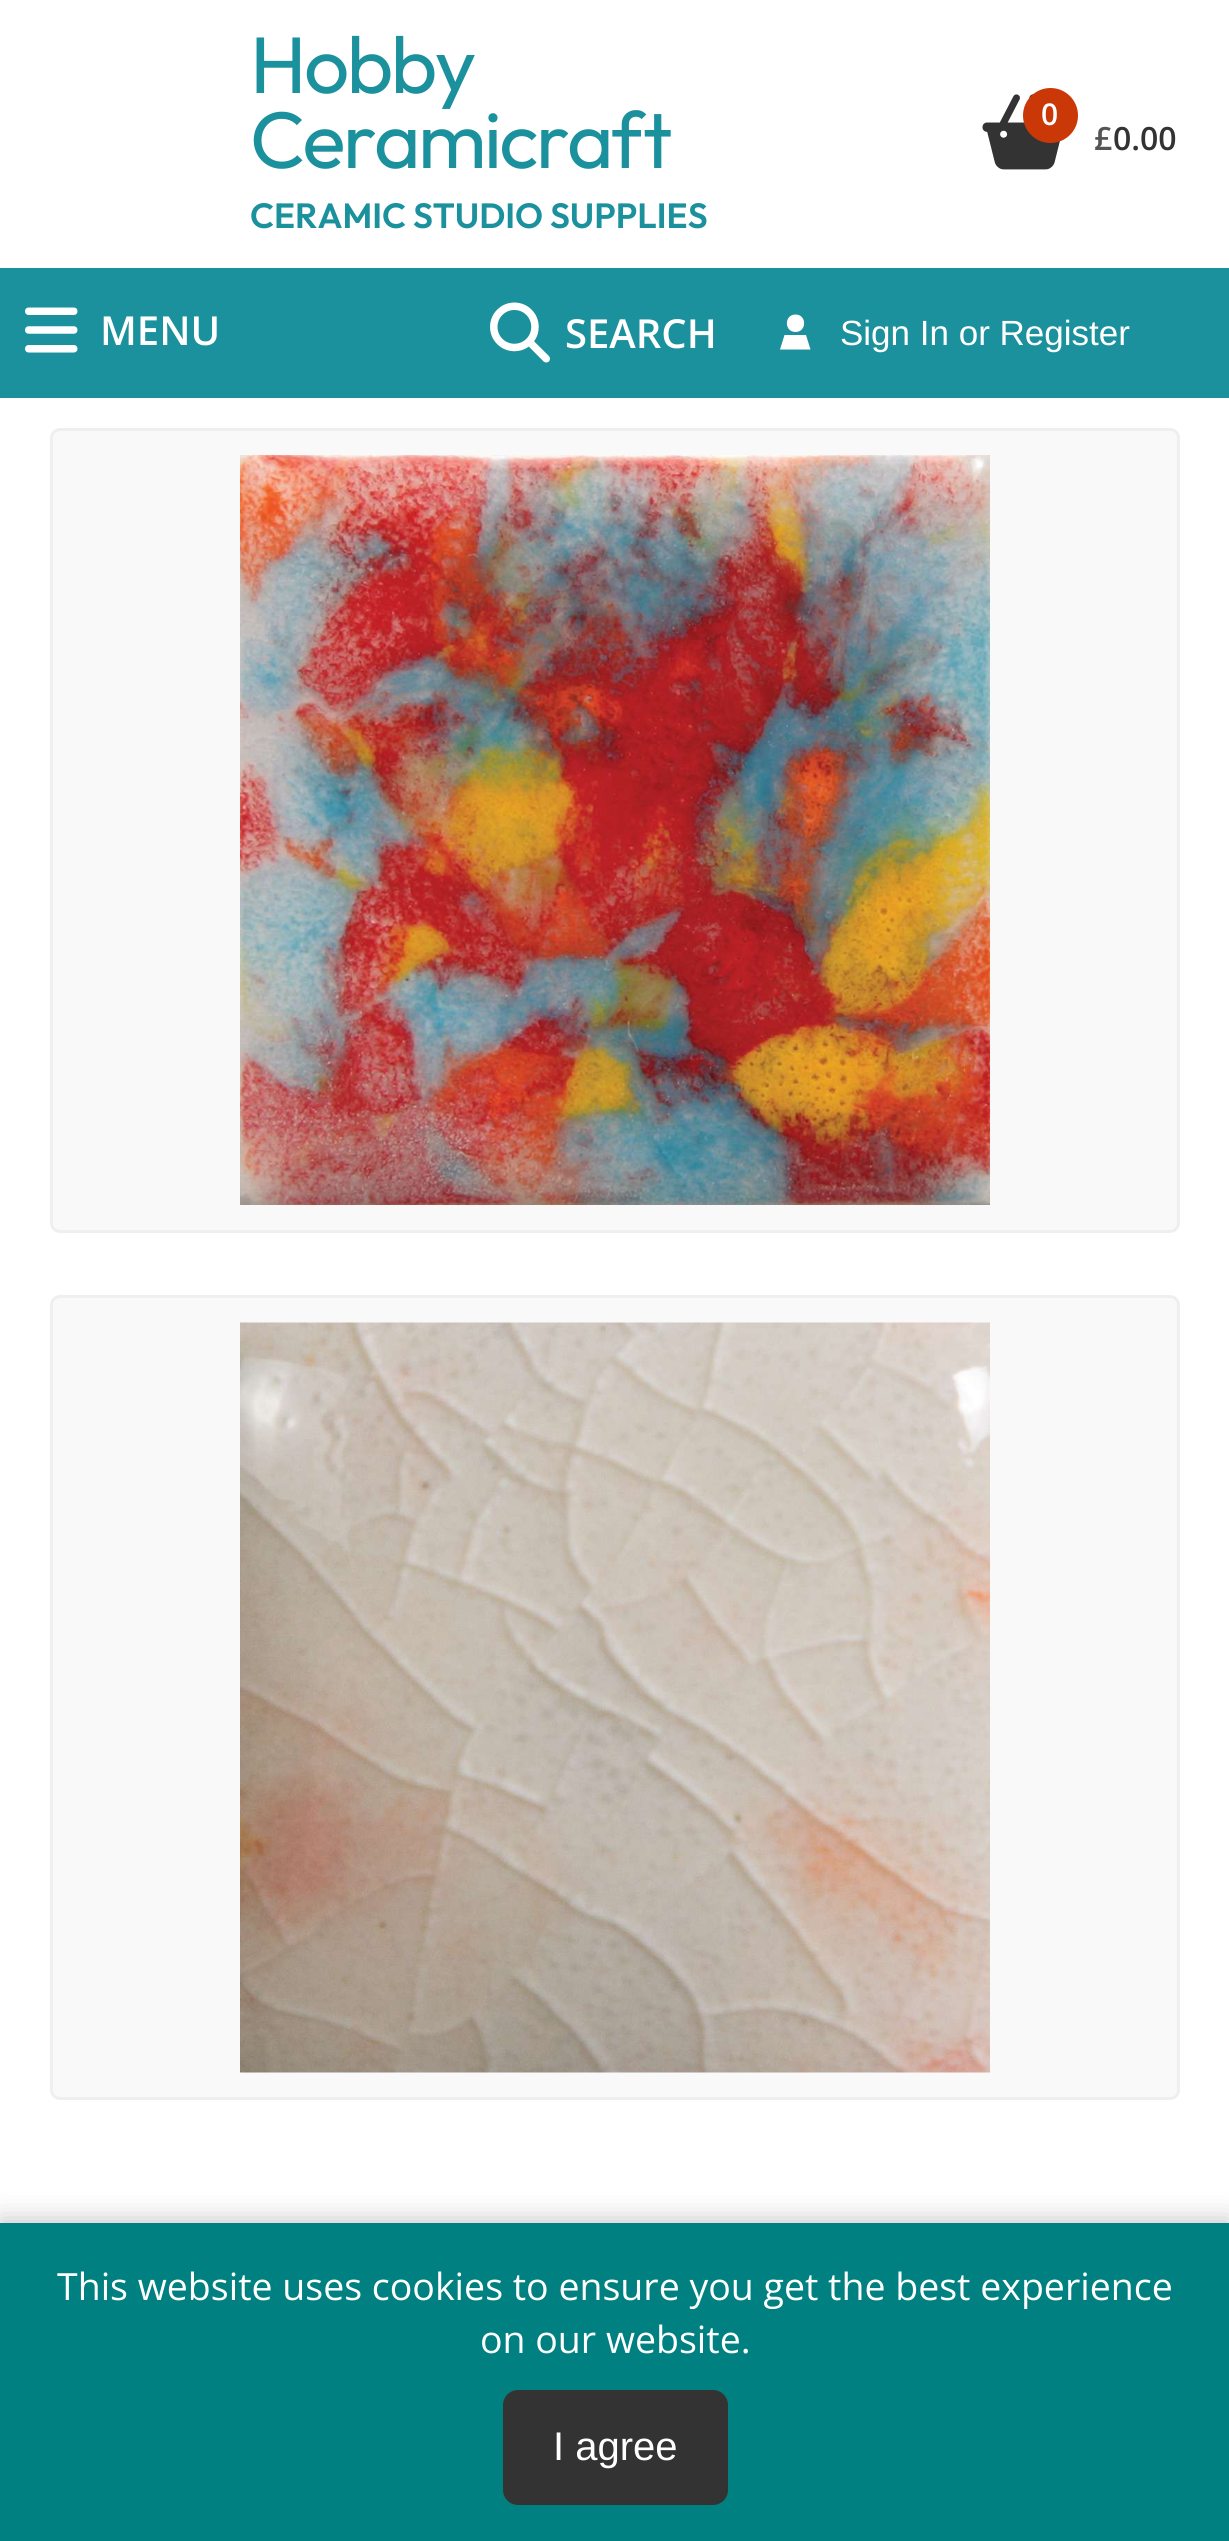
#include <cairo.h>
#include <math.h>
#include <stddef.h>


static void spaced_text(cairo_t *cr, double x, double y, const char *s, double letter, double word) {
    cairo_move_to(cr, x, y);
    while (*s) {
        char ch[5] = {0};
        int n = 0;
        do ch[n++] = *s++; while ((*s & 0xC0) == 0x80);
        cairo_show_text(cr, ch);
        cairo_rel_move_to(cr, letter + word * (*ch == ' '), 0);
    }
}

static void round_rect(cairo_t *cr, double x, double y, double w, double h, double r) {
    cairo_new_sub_path(cr);
    cairo_arc(cr, x + w - r, y + h - r, r, 0, M_PI / 2);
    cairo_arc(cr, x + r, y + h - r, r, M_PI / 2, M_PI);
    cairo_arc(cr, x + r, y + r, r, M_PI, 1.5 * M_PI);
    cairo_arc(cr, x + w - r, y + r, r, 1.5 * M_PI, 2 * M_PI);
    cairo_close_path(cr);
}

static void shadow(cairo_t *cr, double x, double y, double w, double h, double r, double blur, double alpha) {
    cairo_push_group_with_content(cr, CAIRO_CONTENT_ALPHA);
    cairo_set_operator(cr, CAIRO_OPERATOR_SOURCE);
    for (int i = 15; i >= -15 && fmin(w, h) + blur * i / 3 > 0; i -= 2) {
        double e = blur * i / 6;
        cairo_set_source_rgba(cr, 0, 0, 0, alpha * erfc((i - 1) / 8.5) / 2);
        round_rect(cr, x - e, y - e, w + 2 * e, h + 2 * e, fmax(0, fmin(r + e + blur * .6, fmin(w, h) / 2 + e)));
        cairo_fill(cr);
    }
    cairo_pattern_t *soft = cairo_pop_group(cr);
    cairo_mask(cr, soft);
    cairo_pattern_destroy(soft);
}

static void picture(cairo_t *cr, const char *path, double x, double y, double w, double h) {
    cairo_surface_t *image = cairo_image_surface_create_from_png(path);
    cairo_save(cr);
    cairo_set_source_surface(cr, image, x, y);
    cairo_rectangle(cr, x, y, w, h);
    cairo_fill(cr);
    cairo_restore(cr);
    cairo_surface_destroy(image);
}

int main(void) {
    cairo_surface_t *surface = cairo_image_surface_create(CAIRO_FORMAT_RGB24, 1229, 2541);
    cairo_t *cr = cairo_create(surface);
    cairo_font_options_t *options = cairo_font_options_create();
    cairo_font_options_set_hint_metrics(options, CAIRO_HINT_METRICS_OFF);
    cairo_font_options_set_hint_style(options, CAIRO_HINT_STYLE_NONE);
    cairo_set_font_options(cr, options);
    cairo_set_miter_limit(cr, 4);
    cairo_set_source_rgb(cr, 1, 1, 1);
    cairo_paint(cr);
    cairo_select_font_face(cr, "Outfit", CAIRO_FONT_SLANT_NORMAL, CAIRO_FONT_WEIGHT_NORMAL);
    cairo_set_font_size(cr, 80);
    cairo_set_source_rgb(cr, 0.106, 0.569, 0.616);
    spaced_text(cr, 250, 93, "Hobby", -2.5, 0);
    spaced_text(cr, 250, 168, "Ceramicraf", -2.5, 0);
    spaced_text(cr, 643, 168, "t", 2, 0);
    cairo_select_font_face(cr, "Outfit SemiBold", CAIRO_FONT_SLANT_NORMAL, CAIRO_FONT_WEIGHT_NORMAL);
    cairo_set_font_size(cr, 35);
    cairo_move_to(cr, 250, 228);
    cairo_show_text(cr, "CERAMIC STUDIO SUPPLIES");
    picture(cr, "img1.png", 982, 94, 79, 76);
    cairo_set_source_rgb(cr, 0.792, 0.22, 0.031);
    cairo_arc(cr, 1050.5, 115.5, 27.5, 0, 2 * M_PI);
    cairo_fill(cr);
    cairo_select_font_face(cr, "Open Sans SemiBold", CAIRO_FONT_SLANT_NORMAL, CAIRO_FONT_WEIGHT_NORMAL);
    cairo_set_font_size(cr, 30);
    cairo_set_source_rgb(cr, 1, 1, 1);
    cairo_move_to(cr, 1041, 125);
    cairo_show_text(cr, "0");
    cairo_set_font_size(cr, 32);
    cairo_set_source_rgb(cr, 0.333, 0.333, 0.333);
    cairo_move_to(cr, 1094, 150);
    cairo_show_text(cr, "£");
    cairo_set_source_rgb(cr, 0.2, 0.2, 0.2);
    cairo_move_to(cr, 1113, 150);
    cairo_show_text(cr, "0.00");
    cairo_set_source_rgb(cr, 0.106, 0.569, 0.616);
    cairo_rectangle(cr, 0, 268, 1229, 130);
    cairo_fill(cr);
    cairo_set_source_rgb(cr, 1, 1, 1);
    cairo_new_path(cr);
    cairo_move_to(cr, 795.5, 332);
    cairo_curve_to(cr, 807, 332, 807, 314.5, 795.5, 314.5);
    cairo_curve_to(cr, 784, 314.5, 784, 332, 795.5, 332);
    cairo_close_path(cr);
    cairo_move_to(cr, 810.5, 349.5);
    cairo_line_to(cr, 806, 335);
    cairo_line_to(cr, 810.5, 349.5);
    cairo_line_to(cr, 806, 335);
    cairo_line_to(cr, 784.5, 335);
    cairo_line_to(cr, 780, 349.5);
    cairo_close_path(cr);
    cairo_fill(cr);
    cairo_select_font_face(cr, "Liberation Sans", CAIRO_FONT_SLANT_NORMAL, CAIRO_FONT_WEIGHT_NORMAL);
    cairo_set_font_size(cr, 35);
    cairo_move_to(cr, 840, 345);
    cairo_show_text(cr, "Sign In or Register");
    picture(cr, "img2.png", 25, 307, 53, 46);
    cairo_select_font_face(cr, "Open Sans SemiBold", CAIRO_FONT_SLANT_NORMAL, CAIRO_FONT_WEIGHT_NORMAL);
    cairo_set_font_size(cr, 40);
    cairo_move_to(cr, 100, 345);
    cairo_show_text(cr, "MENU");
    picture(cr, "img3.png", 490, 302, 60, 61);
    cairo_move_to(cr, 565, 348);
    cairo_show_text(cr, "SEARCH");
    cairo_set_source_rgb(cr, 0.973, 0.973, 0.973);
    round_rect(cr, 51.5, 429.5, 1127, 802, 8.5);
    cairo_fill_preserve(cr);
    cairo_set_source_rgb(cr, 0.937, 0.937, 0.937);
    cairo_set_line_width(cr, 3);
    cairo_stroke(cr);
    picture(cr, "img4.png", 240, 455, 750, 750);
    cairo_set_source_rgb(cr, 0.973, 0.973, 0.973);
    round_rect(cr, 51.5, 1296.5, 1127, 802, 8.5);
    cairo_fill_preserve(cr);
    cairo_set_source_rgb(cr, 0.937, 0.937, 0.937);
    cairo_stroke(cr);
    picture(cr, "img5.png", 240, 1322, 750, 751);
    cairo_set_source_rgb(cr, 0, 0, 0);
    shadow(cr, 0, 2218, 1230, 320, 0, 12.5, 0.2);
    cairo_set_source_rgb(cr, 0, 0.502, 0.502);
    cairo_rectangle(cr, 0, 2223, 1229, 318);
    cairo_fill(cr);
    cairo_select_font_face(cr, "Open Sans", CAIRO_FONT_SLANT_NORMAL, CAIRO_FONT_WEIGHT_NORMAL);
    cairo_set_font_size(cr, 37.5);
    cairo_set_source_rgb(cr, 1, 1, 1);
    cairo_move_to(cr, 57, 2300);
    cairo_show_text(cr, "This website uses cookies to ensure you get the best experience");
    cairo_move_to(cr, 480, 2353);
    cairo_show_text(cr, "on our website.");
    cairo_set_source_rgb(cr, 0.2, 0.2, 0.2);
    round_rect(cr, 503, 2390, 225, 115, 15);
    cairo_fill(cr);
    cairo_select_font_face(cr, "Liberation Sans", CAIRO_FONT_SLANT_NORMAL, CAIRO_FONT_WEIGHT_NORMAL);
    cairo_set_font_size(cr, 40);
    cairo_set_source_rgb(cr, 1, 1, 1);
    cairo_move_to(cr, 553, 2460);
    cairo_show_text(cr, "I agree");
    cairo_surface_write_to_png(surface, "page.png");
    cairo_font_options_destroy(options);
    cairo_destroy(cr);
    cairo_surface_destroy(surface);
    return 0;
}
